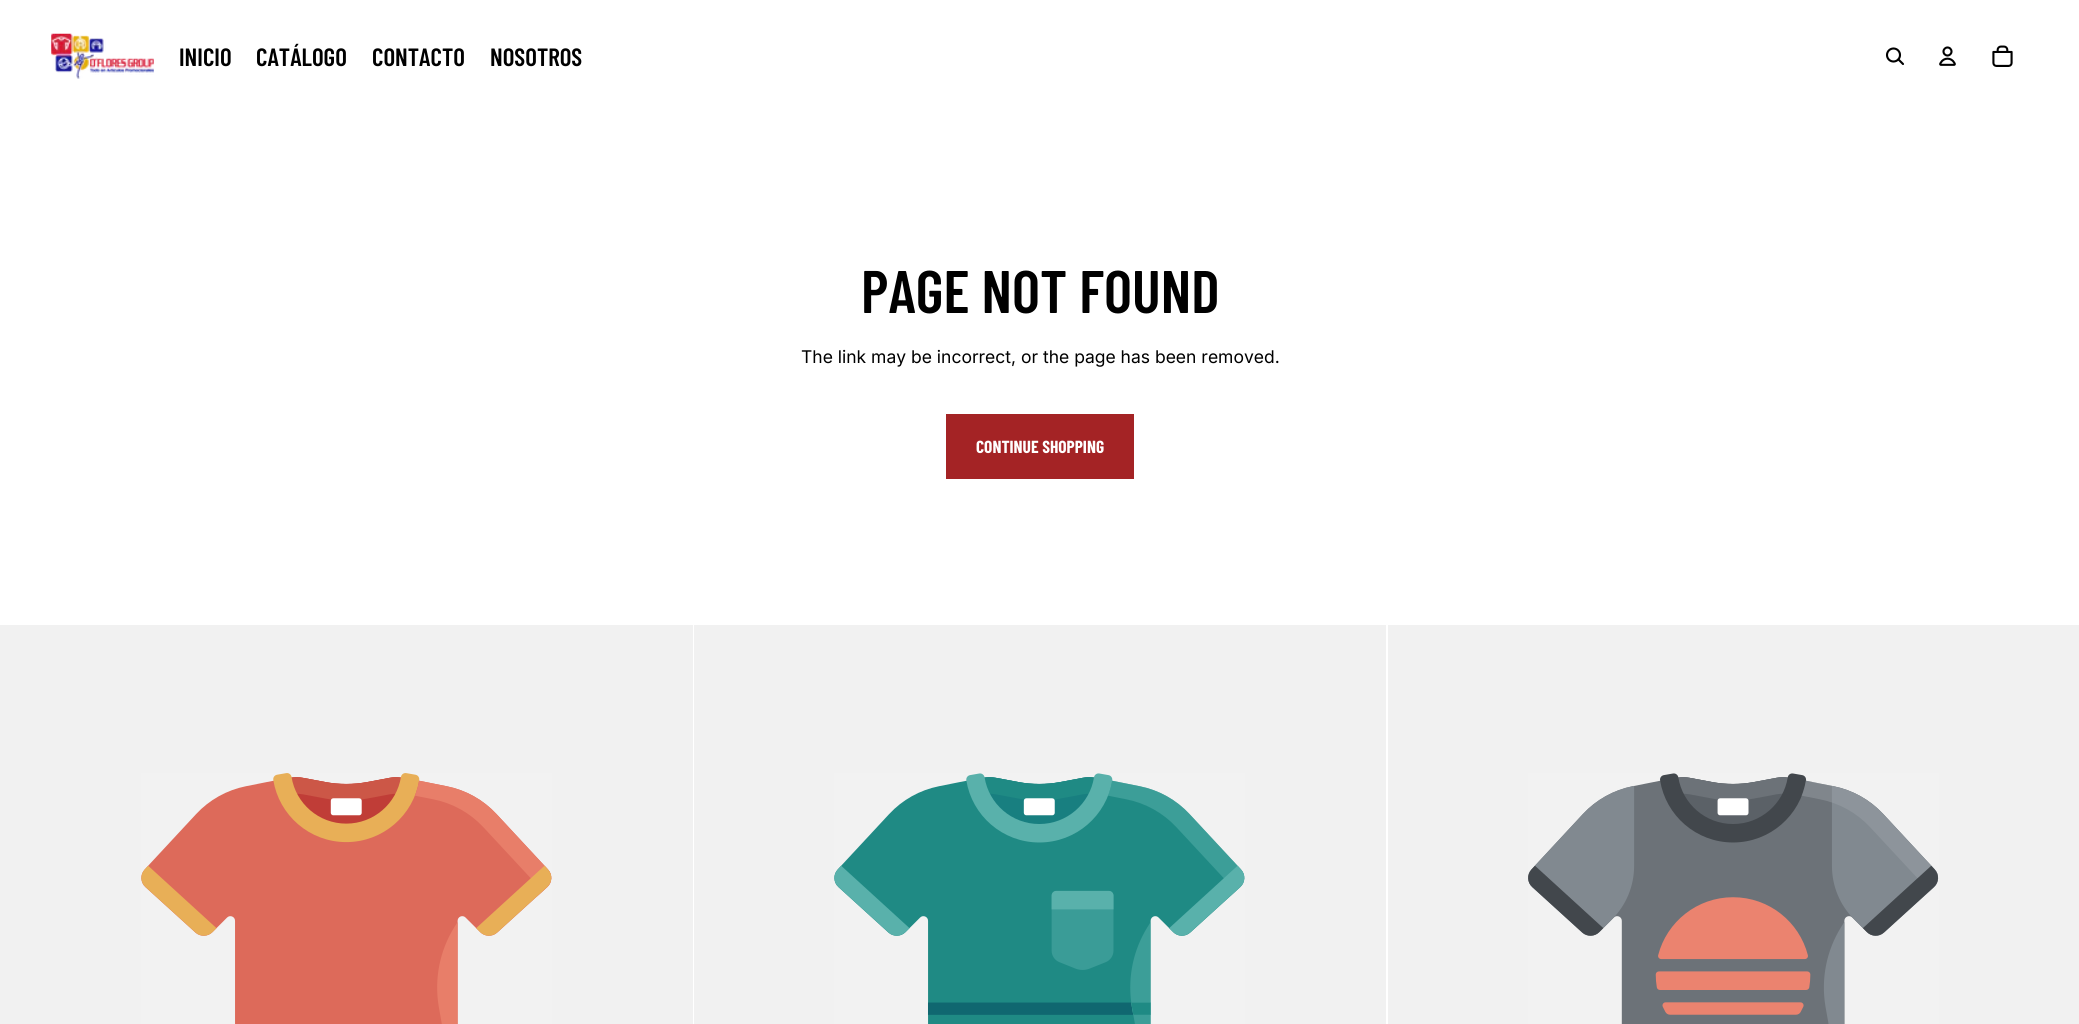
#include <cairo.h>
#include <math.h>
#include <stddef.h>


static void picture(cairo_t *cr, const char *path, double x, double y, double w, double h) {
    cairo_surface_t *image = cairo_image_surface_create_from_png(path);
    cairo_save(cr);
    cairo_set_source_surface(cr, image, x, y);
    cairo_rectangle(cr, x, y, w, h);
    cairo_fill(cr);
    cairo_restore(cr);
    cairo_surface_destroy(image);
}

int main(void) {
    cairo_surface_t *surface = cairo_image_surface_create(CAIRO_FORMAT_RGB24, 2079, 1024);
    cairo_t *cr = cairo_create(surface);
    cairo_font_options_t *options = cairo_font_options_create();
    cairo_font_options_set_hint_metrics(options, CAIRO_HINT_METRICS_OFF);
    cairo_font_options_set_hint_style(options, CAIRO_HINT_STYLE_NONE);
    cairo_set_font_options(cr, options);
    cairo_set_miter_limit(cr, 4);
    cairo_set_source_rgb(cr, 1, 1, 1);
    cairo_paint(cr);
    picture(cr, "img1.png", 51, 33, 103, 46);
    cairo_select_font_face(cr, "Barlow Condensed SemiBold", CAIRO_FONT_SLANT_NORMAL, CAIRO_FONT_WEIGHT_NORMAL);
    cairo_set_font_size(cr, 25);
    cairo_set_source_rgb(cr, 0, 0, 0);
    cairo_move_to(cr, 179, 66);
    cairo_show_text(cr, "INICIO");
    cairo_move_to(cr, 256, 66);
    cairo_show_text(cr, "CATÁLOGO");
    cairo_move_to(cr, 372, 66);
    cairo_show_text(cr, "CONTACTO");
    cairo_move_to(cr, 490, 66);
    cairo_show_text(cr, "NOSOTROS");
    cairo_new_path(cr);
    cairo_arc(cr, 1893.5, 55, 6.5, 0, 2 * M_PI);
    cairo_set_line_width(cr, 2.1);
    cairo_stroke(cr);
    cairo_new_path(cr);
    cairo_move_to(cr, 1898.5, 59.5);
    cairo_line_to(cr, 1903, 64);
    cairo_set_line_cap(cr, CAIRO_LINE_CAP_ROUND);
    cairo_set_line_join(cr, CAIRO_LINE_JOIN_ROUND);
    cairo_stroke(cr);
    picture(cr, "img2.png", 1939, 46, 17, 20);
    picture(cr, "img3.png", 1992, 45, 21, 22);
    cairo_set_font_size(cr, 60);
    cairo_move_to(cr, 861, 313);
    cairo_show_text(cr, "PAGE NOT FOUND");
    cairo_select_font_face(cr, "Inter", CAIRO_FONT_SLANT_NORMAL, CAIRO_FONT_WEIGHT_NORMAL);
    cairo_set_font_size(cr, 17.5);
    cairo_move_to(cr, 801, 363);
    cairo_show_text(cr, "The link may be incorrect, or the page has been removed.");
    cairo_set_source_rgb(cr, 0.643, 0.137, 0.145);
    cairo_rectangle(cr, 946, 414, 188, 65);
    cairo_fill(cr);
    cairo_select_font_face(cr, "Barlow Condensed", CAIRO_FONT_SLANT_NORMAL, CAIRO_FONT_WEIGHT_BOLD);
    cairo_set_source_rgb(cr, 1, 1, 1);
    cairo_move_to(cr, 976, 453);
    cairo_show_text(cr, "CONTINUE SHOPPING");
    cairo_set_source_rgb(cr, 0.945, 0.945, 0.945);
    cairo_rectangle(cr, 0, 625, 693, 399);
    cairo_fill(cr);
    picture(cr, "img4.png", 141, 773, 411, 251);
    cairo_rectangle(cr, 694, 625, 692, 399);
    cairo_fill(cr);
    picture(cr, "img5.png", 834, 773, 411, 251);
    cairo_rectangle(cr, 1388, 625, 691, 399);
    cairo_fill(cr);
    picture(cr, "img6.png", 1528, 773, 411, 251);
    cairo_surface_write_to_png(surface, "page.png");
    cairo_font_options_destroy(options);
    cairo_destroy(cr);
    cairo_surface_destroy(surface);
    return 0;
}
